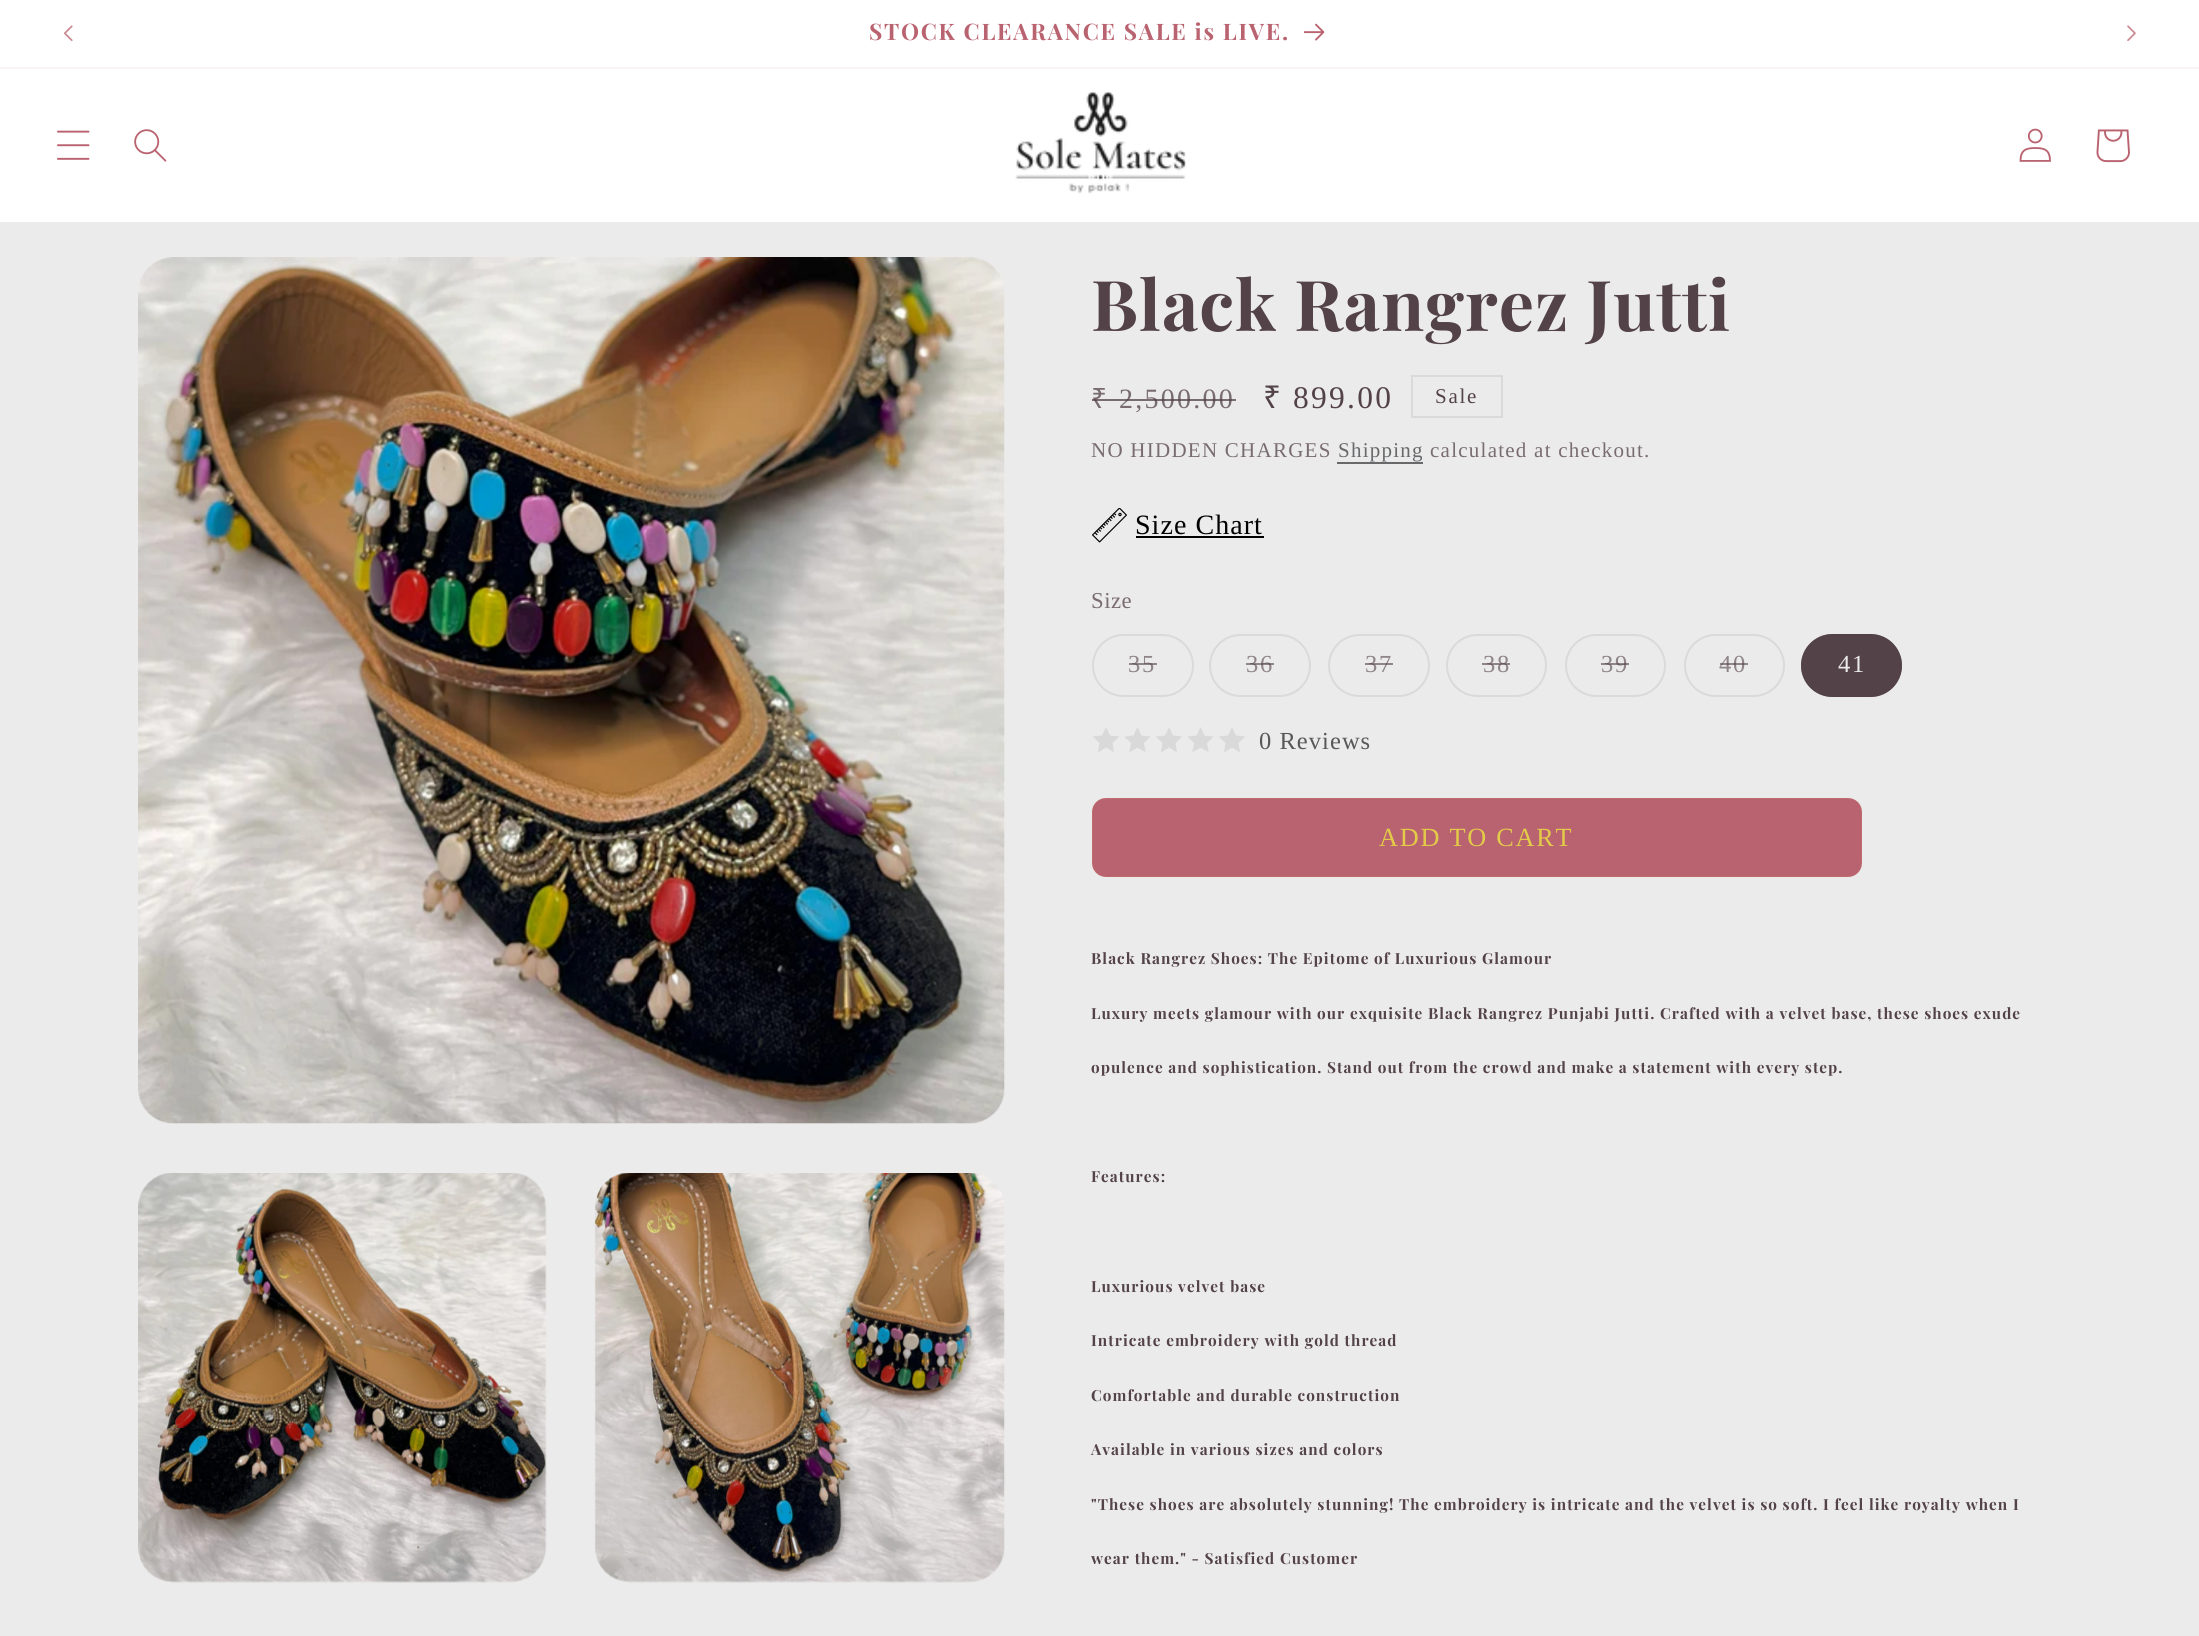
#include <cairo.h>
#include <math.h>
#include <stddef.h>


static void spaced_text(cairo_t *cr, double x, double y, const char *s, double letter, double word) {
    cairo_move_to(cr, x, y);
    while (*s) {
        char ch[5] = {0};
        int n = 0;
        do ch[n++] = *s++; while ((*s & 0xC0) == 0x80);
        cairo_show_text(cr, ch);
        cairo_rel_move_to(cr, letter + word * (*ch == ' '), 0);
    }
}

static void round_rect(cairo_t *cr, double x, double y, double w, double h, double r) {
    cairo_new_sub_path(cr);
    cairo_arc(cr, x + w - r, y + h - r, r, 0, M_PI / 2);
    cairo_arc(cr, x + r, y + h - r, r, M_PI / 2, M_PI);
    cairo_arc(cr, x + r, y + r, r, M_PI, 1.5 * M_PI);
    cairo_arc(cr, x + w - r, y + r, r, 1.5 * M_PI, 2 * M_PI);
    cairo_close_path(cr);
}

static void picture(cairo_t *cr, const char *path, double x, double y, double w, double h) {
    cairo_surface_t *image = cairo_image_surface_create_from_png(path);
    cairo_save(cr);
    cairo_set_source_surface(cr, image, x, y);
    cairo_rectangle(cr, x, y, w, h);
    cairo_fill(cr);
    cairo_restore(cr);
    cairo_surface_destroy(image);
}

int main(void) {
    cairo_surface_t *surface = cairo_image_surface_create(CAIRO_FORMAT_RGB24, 2199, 1636);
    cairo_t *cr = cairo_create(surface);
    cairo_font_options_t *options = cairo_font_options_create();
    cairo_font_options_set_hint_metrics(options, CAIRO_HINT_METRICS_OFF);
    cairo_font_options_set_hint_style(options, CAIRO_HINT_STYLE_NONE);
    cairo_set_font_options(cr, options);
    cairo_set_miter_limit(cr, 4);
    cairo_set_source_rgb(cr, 1, 1, 1);
    cairo_paint(cr);
    cairo_set_source_rgb(cr, 0.976, 0.953, 0.957);
    cairo_rectangle(cr, 0, 67, 2199, 2);
    cairo_fill(cr);
    picture(cr, "img1.png", 63, 25, 10, 17);
    cairo_select_font_face(cr, "Playfair Display", CAIRO_FONT_SLANT_NORMAL, CAIRO_FONT_WEIGHT_BOLD);
    cairo_set_font_size(cr, 22.75);
    cairo_set_source_rgb(cr, 0.729, 0.388, 0.439);
    spaced_text(cr, 869, 40, "STOCK CLEARANCE SALE is LIVE.", 1.75, 0);
    picture(cr, "img2.png", 1304, 23, 21, 18);
    picture(cr, "img3.png", 2127, 25, 9, 16);
    picture(cr, "img4.png", 57, 130, 33, 30);
    picture(cr, "img5.png", 134, 129, 33, 33);
    picture(cr, "img6.png", 1015, 91, 171, 103);
    picture(cr, "img7.png", 2019, 128, 32, 34);
    picture(cr, "img8.png", 2096, 129, 34, 34);
    cairo_set_source_rgb(cr, 0.918, 0.918, 0.918);
    cairo_rectangle(cr, 0, 222, 2199, 1414);
    cairo_fill(cr);
    picture(cr, "img9.png", 138, 257, 867, 867);
    picture(cr, "img10.png", 138, 1173, 409, 410);
    picture(cr, "img11.png", 594, 1173, 411, 410);
    cairo_set_font_size(cr, 70);
    cairo_set_source_rgb(cr, 0.325, 0.259, 0.278);
    spaced_text(cr, 1091, 331, "Black Rangrez Jutti", 1.05, 0);
    cairo_select_font_face(cr, "Noto Sans", CAIRO_FONT_SLANT_NORMAL, CAIRO_FONT_WEIGHT_NORMAL);
    cairo_set_font_size(cr, 28);
    cairo_set_source_rgb(cr, 0.475, 0.424, 0.439);
    spaced_text(cr, 1091, 408, "₹", 2.25, 0);
    cairo_select_font_face(cr, "Liberation Serif", CAIRO_FONT_SLANT_NORMAL, CAIRO_FONT_WEIGHT_NORMAL);
    spaced_text(cr, 1119, 408, "2,500.00", 2.25, 0);
    cairo_set_source_rgba(cr, 0.325, 0.259, 0.278, 0.75);
    cairo_rectangle(cr, 1092, 399, 144, 2);
    cairo_fill(cr);
    cairo_select_font_face(cr, "Noto Sans", CAIRO_FONT_SLANT_NORMAL, CAIRO_FONT_WEIGHT_NORMAL);
    cairo_set_font_size(cr, 31.5);
    cairo_set_source_rgb(cr, 0.325, 0.259, 0.278);
    spaced_text(cr, 1263, 408, "₹", 2.25, 0);
    cairo_select_font_face(cr, "Liberation Serif", CAIRO_FONT_SLANT_NORMAL, CAIRO_FONT_WEIGHT_NORMAL);
    spaced_text(cr, 1293, 408, "899.00", 2.25, 0);
    cairo_rectangle(cr, 1412, 376, 90, 41);
    cairo_set_source_rgb(cr, 0.859, 0.851, 0.855);
    cairo_stroke(cr);
    cairo_set_font_size(cr, 21);
    cairo_set_source_rgb(cr, 0.325, 0.259, 0.278);
    spaced_text(cr, 1435, 403, "Sale", 1.75, 0);
    cairo_set_source_rgb(cr, 0.475, 0.424, 0.439);
    spaced_text(cr, 1091, 457, "NO HIDDEN CHARGES", 1.25, 0);
    cairo_set_source_rgb(cr, 0.408, 0.412, 0.42);
    spaced_text(cr, 1338, 457, "Shipping", 1.25, 0);
    cairo_rectangle(cr, 1337, 462, 86, 2);
    cairo_fill(cr);
    cairo_set_source_rgb(cr, 0.475, 0.424, 0.439);
    spaced_text(cr, 1430, 457, "calculated at checkout.", 1.25, 0);
    picture(cr, "img12.png", 1092, 508, 35, 35);
    cairo_set_font_size(cr, 28);
    cairo_set_source_rgb(cr, 0, 0, 0);
    spaced_text(cr, 1135, 534, "Size Chart", 1.05, 0);
    cairo_rectangle(cr, 1136, 536, 128, 2);
    cairo_fill(cr);
    cairo_set_font_size(cr, 22.75);
    cairo_set_source_rgb(cr, 0.475, 0.424, 0.439);
    spaced_text(cr, 1091, 608, "Size", 0.5, 0);
    round_rect(cr, 1093, 635, 100, 61, 30.5);
    cairo_set_source_rgb(cr, 0.859, 0.851, 0.855);
    cairo_stroke(cr);
    cairo_set_font_size(cr, 24.5);
    cairo_set_source_rgb(cr, 0.561, 0.522, 0.533);
    spaced_text(cr, 1128, 672, "35", 1.75, 0);
    cairo_set_source_rgba(cr, 0.325, 0.259, 0.278, 0.6);
    cairo_rectangle(cr, 1129, 663, 28, 2);
    cairo_fill(cr);
    round_rect(cr, 1210, 635, 100, 61, 30.5);
    cairo_set_source_rgb(cr, 0.859, 0.851, 0.855);
    cairo_stroke(cr);
    cairo_set_source_rgb(cr, 0.561, 0.522, 0.533);
    spaced_text(cr, 1246, 672, "36", 1.75, 0);
    cairo_set_source_rgba(cr, 0.325, 0.259, 0.278, 0.6);
    cairo_rectangle(cr, 1246, 663, 28, 2);
    cairo_fill(cr);
    round_rect(cr, 1329, 635, 100, 61, 30.5);
    cairo_set_source_rgb(cr, 0.859, 0.851, 0.855);
    cairo_stroke(cr);
    cairo_set_source_rgb(cr, 0.561, 0.522, 0.533);
    spaced_text(cr, 1365, 672, "37", 1.75, 0);
    cairo_set_source_rgba(cr, 0.325, 0.259, 0.278, 0.6);
    cairo_rectangle(cr, 1365, 663, 28, 2);
    cairo_fill(cr);
    round_rect(cr, 1447, 635, 99, 61, 30.5);
    cairo_set_source_rgb(cr, 0.859, 0.851, 0.855);
    cairo_stroke(cr);
    cairo_set_source_rgb(cr, 0.561, 0.522, 0.533);
    spaced_text(cr, 1483, 672, "38", 1.75, 0);
    cairo_set_source_rgba(cr, 0.325, 0.259, 0.278, 0.6);
    cairo_rectangle(cr, 1482, 663, 28, 2);
    cairo_fill(cr);
    round_rect(cr, 1566, 635, 99, 61, 30.5);
    cairo_set_source_rgb(cr, 0.859, 0.851, 0.855);
    cairo_stroke(cr);
    cairo_set_source_rgb(cr, 0.561, 0.522, 0.533);
    spaced_text(cr, 1601, 672, "39", 1.75, 0);
    cairo_set_source_rgba(cr, 0.325, 0.259, 0.278, 0.6);
    cairo_rectangle(cr, 1601, 663, 28, 2);
    cairo_fill(cr);
    round_rect(cr, 1685, 635, 99, 61, 30.5);
    cairo_set_source_rgb(cr, 0.859, 0.851, 0.855);
    cairo_stroke(cr);
    cairo_set_source_rgb(cr, 0.561, 0.522, 0.533);
    spaced_text(cr, 1719, 672, "40", 1.75, 0);
    cairo_set_source_rgba(cr, 0.325, 0.259, 0.278, 0.6);
    cairo_rectangle(cr, 1720, 663, 28, 2);
    cairo_fill(cr);
    cairo_set_source_rgb(cr, 0.325, 0.259, 0.278);
    round_rect(cr, 1801, 634, 101, 63, 31.5);
    cairo_fill(cr);
    round_rect(cr, 1802, 635, 99, 61, 30.5);
    cairo_set_source_rgba(cr, 0.325, 0.259, 0.278, 0.55);
    cairo_stroke(cr);
    cairo_set_source_rgb(cr, 0.918, 0.918, 0.918);
    spaced_text(cr, 1838, 672, "41", 1.75, 0);
    cairo_set_source_rgb(cr, 0.851, 0.851, 0.851);
    cairo_new_path(cr);
    cairo_move_to(cr, 1106, 727);
    cairo_line_to(cr, 1110, 735.5);
    cairo_line_to(cr, 1119.5, 736.5);
    cairo_line_to(cr, 1112.5, 743);
    cairo_line_to(cr, 1114, 752.5);
    cairo_line_to(cr, 1106, 747.5);
    cairo_line_to(cr, 1098, 752.5);
    cairo_line_to(cr, 1099.5, 743);
    cairo_line_to(cr, 1092.5, 736.5);
    cairo_line_to(cr, 1102, 735.5);
    cairo_close_path(cr);
    cairo_fill(cr);
    picture(cr, "img13.png", 1124, 727, 27, 25);
    cairo_new_path(cr);
    cairo_move_to(cr, 1169, 727);
    cairo_line_to(cr, 1173, 735.5);
    cairo_line_to(cr, 1182.5, 736.5);
    cairo_line_to(cr, 1175.5, 743);
    cairo_line_to(cr, 1177, 752.5);
    cairo_line_to(cr, 1169, 747.5);
    cairo_line_to(cr, 1161, 752.5);
    cairo_line_to(cr, 1162.5, 743);
    cairo_line_to(cr, 1155.5, 736.5);
    cairo_line_to(cr, 1165, 735.5);
    cairo_close_path(cr);
    cairo_fill(cr);
    picture(cr, "img13.png", 1187, 727, 27, 25);
    cairo_new_path(cr);
    cairo_move_to(cr, 1232, 727);
    cairo_line_to(cr, 1236, 735.5);
    cairo_line_to(cr, 1245.5, 736.5);
    cairo_line_to(cr, 1238.5, 743);
    cairo_line_to(cr, 1240, 752.5);
    cairo_line_to(cr, 1232, 747.5);
    cairo_line_to(cr, 1224, 752.5);
    cairo_line_to(cr, 1225.5, 743);
    cairo_line_to(cr, 1218.5, 736.5);
    cairo_line_to(cr, 1228, 735.5);
    cairo_close_path(cr);
    cairo_fill(cr);
    cairo_set_source_rgb(cr, 0.345, 0.345, 0.345);
    spaced_text(cr, 1259, 749, "0 Reviews", 1.05, 0);
    cairo_set_source_rgb(cr, 0.729, 0.388, 0.439);
    round_rect(cr, 1092, 798, 770, 79, 14);
    cairo_fill(cr);
    round_rect(cr, 1092.25, 798.25, 769.5, 78.5, 13.75);
    cairo_set_source_rgba(cr, 0.886, 0.796, 0.282, 0.15);
    cairo_set_line_width(cr, 0.5);
    cairo_stroke(cr);
    cairo_set_font_size(cr, 26.25);
    cairo_set_source_rgb(cr, 0.886, 0.796, 0.282);
    spaced_text(cr, 1379, 846, "ADD TO CART", 1.75, 0);
    cairo_select_font_face(cr, "Playfair Display", CAIRO_FONT_SLANT_NORMAL, CAIRO_FONT_WEIGHT_BOLD);
    cairo_set_font_size(cr, 15.3);
    cairo_set_source_rgb(cr, 0.325, 0.259, 0.278);
    spaced_text(cr, 1091, 964, "Black Rangrez Shoes: The Epitome of Luxurious Glamour", 1.05, 0);
    spaced_text(cr, 1091, 1019, "Luxury meets glamour with our exquisite Black Rangrez Punjabi Jutti. Crafted with a velvet base, these shoes exude", 1.05, 0);
    spaced_text(cr, 1091, 1073, "opulence and sophistication. Stand out from the crowd and make a statement with every step.", 1.05, 0);
    spaced_text(cr, 1091, 1182, "Features:", 1.05, 0);
    spaced_text(cr, 1091, 1292, "Luxurious velvet base", 1.05, 0);
    spaced_text(cr, 1091, 1346, "Intricate embroidery with gold thread", 1.05, 0);
    spaced_text(cr, 1091, 1401, "Comfortable and durable construction", 1.05, 0);
    spaced_text(cr, 1091, 1455, "Available in various sizes and colors", 1.05, 0);
    spaced_text(cr, 1091, 1510, "\"These shoes are absolutely stunning! The embroidery is intricate and the velvet is so soft. I feel like royalty when I", 1.05, 0);
    spaced_text(cr, 1091, 1564, "wear them.\" - Satisfied Customer", 1.05, 0);
    cairo_surface_write_to_png(surface, "page.png");
    cairo_font_options_destroy(options);
    cairo_destroy(cr);
    cairo_surface_destroy(surface);
    return 0;
}
